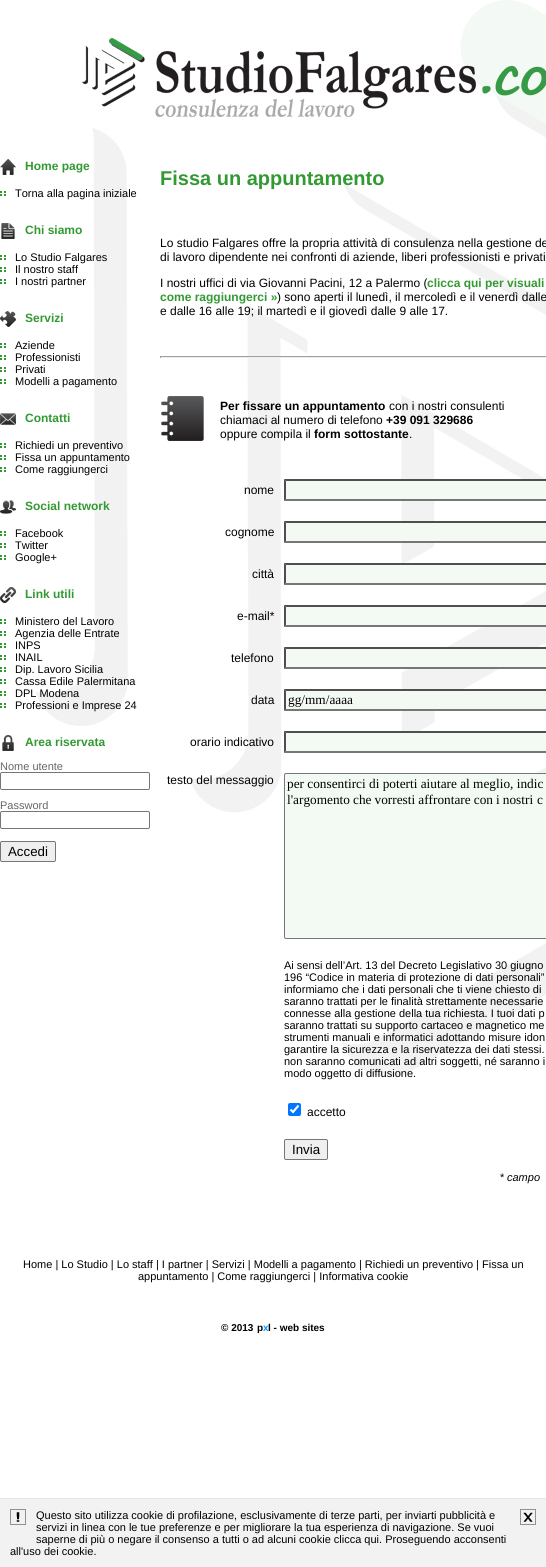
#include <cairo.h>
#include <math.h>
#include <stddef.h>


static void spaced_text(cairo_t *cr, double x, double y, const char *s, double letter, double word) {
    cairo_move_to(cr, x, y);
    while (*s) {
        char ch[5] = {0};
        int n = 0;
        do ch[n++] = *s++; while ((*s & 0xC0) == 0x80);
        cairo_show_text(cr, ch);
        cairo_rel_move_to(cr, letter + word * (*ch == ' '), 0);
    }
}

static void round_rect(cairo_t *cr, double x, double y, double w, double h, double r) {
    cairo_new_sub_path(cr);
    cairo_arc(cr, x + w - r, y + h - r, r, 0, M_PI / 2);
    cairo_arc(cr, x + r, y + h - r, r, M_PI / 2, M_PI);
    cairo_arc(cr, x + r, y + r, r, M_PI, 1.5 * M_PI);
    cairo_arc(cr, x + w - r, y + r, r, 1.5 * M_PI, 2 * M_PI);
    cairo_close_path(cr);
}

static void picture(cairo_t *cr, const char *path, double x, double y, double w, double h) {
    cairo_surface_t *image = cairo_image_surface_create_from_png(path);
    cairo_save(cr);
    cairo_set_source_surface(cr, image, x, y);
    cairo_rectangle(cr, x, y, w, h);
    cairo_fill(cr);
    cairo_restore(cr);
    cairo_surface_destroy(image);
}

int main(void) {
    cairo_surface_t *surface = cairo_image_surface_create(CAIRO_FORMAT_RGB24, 546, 1567);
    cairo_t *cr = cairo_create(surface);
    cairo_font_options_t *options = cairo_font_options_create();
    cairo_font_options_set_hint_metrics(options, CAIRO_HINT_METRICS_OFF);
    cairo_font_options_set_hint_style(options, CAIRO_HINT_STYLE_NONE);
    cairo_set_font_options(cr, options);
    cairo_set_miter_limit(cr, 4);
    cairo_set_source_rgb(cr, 1, 1, 1);
    cairo_paint(cr);
    picture(cr, "img1.png", 36, 0, 510, 1077);
    picture(cr, "img2.png", 82, 38, 464, 79);
    picture(cr, "img3.png", 0, 159, 16, 16);
    cairo_select_font_face(cr, "Liberation Sans", CAIRO_FONT_SLANT_NORMAL, CAIRO_FONT_WEIGHT_BOLD);
    cairo_set_font_size(cr, 12);
    cairo_set_source_rgb(cr, 0.2, 0.6, 0.2);
    cairo_move_to(cr, 25, 170);
    cairo_show_text(cr, "Home page");
    picture(cr, "img4.png", 0, 191, 6, 5);
    cairo_select_font_face(cr, "Liberation Sans", CAIRO_FONT_SLANT_NORMAL, CAIRO_FONT_WEIGHT_NORMAL);
    cairo_set_font_size(cr, 11);
    cairo_set_source_rgb(cr, 0, 0, 0);
    cairo_move_to(cr, 15, 197);
    cairo_show_text(cr, "Torna alla pagina iniziale");
    picture(cr, "img5.png", 1, 223, 14, 16);
    cairo_select_font_face(cr, "Liberation Sans", CAIRO_FONT_SLANT_NORMAL, CAIRO_FONT_WEIGHT_BOLD);
    cairo_set_font_size(cr, 12);
    cairo_set_source_rgb(cr, 0.2, 0.6, 0.2);
    cairo_move_to(cr, 25, 234);
    cairo_show_text(cr, "Chi siamo");
    picture(cr, "img4.png", 0, 255, 6, 5);
    cairo_select_font_face(cr, "Liberation Sans", CAIRO_FONT_SLANT_NORMAL, CAIRO_FONT_WEIGHT_NORMAL);
    cairo_set_font_size(cr, 11);
    cairo_set_source_rgb(cr, 0, 0, 0);
    cairo_move_to(cr, 15, 261);
    cairo_show_text(cr, "Lo Studio Falgares");
    picture(cr, "img4.png", 0, 267, 6, 5);
    cairo_move_to(cr, 15, 273);
    cairo_show_text(cr, "Il nostro staff");
    picture(cr, "img4.png", 0, 279, 6, 5);
    cairo_move_to(cr, 15, 285);
    cairo_show_text(cr, "I nostri partner");
    picture(cr, "img6.png", 0, 311, 16, 16);
    cairo_select_font_face(cr, "Liberation Sans", CAIRO_FONT_SLANT_NORMAL, CAIRO_FONT_WEIGHT_BOLD);
    cairo_set_font_size(cr, 12);
    cairo_set_source_rgb(cr, 0.2, 0.6, 0.2);
    cairo_move_to(cr, 25, 322);
    cairo_show_text(cr, "Servizi");
    picture(cr, "img4.png", 0, 343, 6, 5);
    cairo_select_font_face(cr, "Liberation Sans", CAIRO_FONT_SLANT_NORMAL, CAIRO_FONT_WEIGHT_NORMAL);
    cairo_set_font_size(cr, 11);
    cairo_set_source_rgb(cr, 0, 0, 0);
    cairo_move_to(cr, 15, 349);
    cairo_show_text(cr, "Aziende");
    picture(cr, "img4.png", 0, 355, 6, 5);
    cairo_move_to(cr, 15, 361);
    cairo_show_text(cr, "Professionisti");
    picture(cr, "img4.png", 0, 367, 6, 5);
    cairo_move_to(cr, 15, 373);
    cairo_show_text(cr, "Privati");
    picture(cr, "img4.png", 0, 379, 6, 5);
    cairo_move_to(cr, 15, 385);
    cairo_show_text(cr, "Modelli a pagamento");
    picture(cr, "img7.png", 0, 413, 16, 12);
    cairo_select_font_face(cr, "Liberation Sans", CAIRO_FONT_SLANT_NORMAL, CAIRO_FONT_WEIGHT_BOLD);
    cairo_set_font_size(cr, 12);
    cairo_set_source_rgb(cr, 0.2, 0.6, 0.2);
    cairo_move_to(cr, 25, 422);
    cairo_show_text(cr, "Contatti");
    picture(cr, "img4.png", 0, 443, 6, 5);
    cairo_select_font_face(cr, "Liberation Sans", CAIRO_FONT_SLANT_NORMAL, CAIRO_FONT_WEIGHT_NORMAL);
    cairo_set_font_size(cr, 11);
    cairo_set_source_rgb(cr, 0, 0, 0);
    cairo_move_to(cr, 15, 449);
    cairo_show_text(cr, "Richiedi un preventivo");
    picture(cr, "img4.png", 0, 455, 6, 5);
    cairo_move_to(cr, 15, 461);
    cairo_show_text(cr, "Fissa un appuntamento");
    picture(cr, "img4.png", 0, 467, 6, 5);
    cairo_move_to(cr, 15, 473);
    cairo_show_text(cr, "Come raggiungerci");
    picture(cr, "img8.png", 0, 500, 16, 14);
    cairo_select_font_face(cr, "Liberation Sans", CAIRO_FONT_SLANT_NORMAL, CAIRO_FONT_WEIGHT_BOLD);
    cairo_set_font_size(cr, 12);
    cairo_set_source_rgb(cr, 0.2, 0.6, 0.2);
    cairo_move_to(cr, 25, 510);
    cairo_show_text(cr, "Social network");
    picture(cr, "img4.png", 0, 531, 6, 5);
    cairo_select_font_face(cr, "Liberation Sans", CAIRO_FONT_SLANT_NORMAL, CAIRO_FONT_WEIGHT_NORMAL);
    cairo_set_font_size(cr, 11);
    cairo_set_source_rgb(cr, 0, 0, 0);
    cairo_move_to(cr, 15, 537);
    cairo_show_text(cr, "Facebook");
    picture(cr, "img4.png", 0, 543, 6, 5);
    cairo_move_to(cr, 15, 549);
    cairo_show_text(cr, "Twitter");
    picture(cr, "img4.png", 0, 555, 6, 5);
    cairo_move_to(cr, 15, 561);
    cairo_show_text(cr, "Google+");
    picture(cr, "img9.png", 0, 587, 16, 16);
    cairo_select_font_face(cr, "Liberation Sans", CAIRO_FONT_SLANT_NORMAL, CAIRO_FONT_WEIGHT_BOLD);
    cairo_set_font_size(cr, 12);
    cairo_set_source_rgb(cr, 0.2, 0.6, 0.2);
    cairo_move_to(cr, 25, 598);
    cairo_show_text(cr, "Link utili");
    picture(cr, "img4.png", 0, 619, 6, 5);
    cairo_select_font_face(cr, "Liberation Sans", CAIRO_FONT_SLANT_NORMAL, CAIRO_FONT_WEIGHT_NORMAL);
    cairo_set_font_size(cr, 11);
    cairo_set_source_rgb(cr, 0, 0, 0);
    cairo_move_to(cr, 15, 625);
    cairo_show_text(cr, "Ministero del Lavoro");
    picture(cr, "img4.png", 0, 631, 6, 5);
    cairo_move_to(cr, 15, 637);
    cairo_show_text(cr, "Agenzia delle Entrate");
    picture(cr, "img4.png", 0, 643, 6, 5);
    cairo_move_to(cr, 15, 649);
    cairo_show_text(cr, "INPS");
    picture(cr, "img4.png", 0, 655, 6, 5);
    cairo_move_to(cr, 15, 661);
    cairo_show_text(cr, "INAIL");
    picture(cr, "img4.png", 0, 667, 6, 5);
    cairo_move_to(cr, 15, 673);
    cairo_show_text(cr, "Dip. Lavoro Sicilia");
    picture(cr, "img4.png", 0, 679, 6, 5);
    cairo_move_to(cr, 15, 685);
    cairo_show_text(cr, "Cassa Edile Palermitana");
    picture(cr, "img4.png", 0, 691, 6, 5);
    cairo_move_to(cr, 15, 697);
    cairo_show_text(cr, "DPL Modena");
    picture(cr, "img4.png", 0, 703, 6, 5);
    cairo_move_to(cr, 15, 709);
    cairo_show_text(cr, "Professioni e Imprese 24");
    picture(cr, "img10.png", 2, 735, 12, 16);
    cairo_select_font_face(cr, "Liberation Sans", CAIRO_FONT_SLANT_NORMAL, CAIRO_FONT_WEIGHT_BOLD);
    cairo_set_font_size(cr, 12);
    cairo_set_source_rgb(cr, 0.2, 0.6, 0.2);
    cairo_move_to(cr, 25, 746);
    cairo_show_text(cr, "Area riservata");
    cairo_select_font_face(cr, "Liberation Sans", CAIRO_FONT_SLANT_NORMAL, CAIRO_FONT_WEIGHT_NORMAL);
    cairo_set_font_size(cr, 11);
    cairo_set_source_rgb(cr, 0.4, 0.4, 0.4);
    cairo_move_to(cr, 0, 770);
    cairo_show_text(cr, "Nome utente");
    round_rect(cr, 0.5, 772.5, 149, 17, 1.5);
    cairo_set_source_rgb(cr, 0.463, 0.463, 0.463);
    cairo_set_line_width(cr, 1);
    cairo_stroke(cr);
    cairo_set_source_rgb(cr, 0.4, 0.4, 0.4);
    cairo_move_to(cr, 0, 809);
    cairo_show_text(cr, "Password");
    round_rect(cr, 0.5, 811.5, 149, 17, 1.5);
    cairo_set_source_rgb(cr, 0.463, 0.463, 0.463);
    cairo_stroke(cr);
    cairo_set_source_rgb(cr, 0.937, 0.937, 0.937);
    round_rect(cr, 0.5, 841.5, 55, 20, 1.5);
    cairo_fill_preserve(cr);
    cairo_set_source_rgb(cr, 0.463, 0.463, 0.463);
    cairo_stroke(cr);
    cairo_set_font_size(cr, 13.3);
    cairo_set_source_rgb(cr, 0, 0, 0);
    cairo_move_to(cr, 8, 856);
    cairo_show_text(cr, "Accedi");
    cairo_select_font_face(cr, "Liberation Sans", CAIRO_FONT_SLANT_NORMAL, CAIRO_FONT_WEIGHT_BOLD);
    cairo_set_font_size(cr, 20);
    cairo_set_source_rgb(cr, 0.2, 0.6, 0.2);
    cairo_move_to(cr, 160, 185);
    cairo_show_text(cr, "Fissa un appuntamento");
    cairo_select_font_face(cr, "Liberation Sans", CAIRO_FONT_SLANT_NORMAL, CAIRO_FONT_WEIGHT_NORMAL);
    cairo_set_font_size(cr, 12);
    cairo_set_source_rgb(cr, 0, 0, 0);
    cairo_move_to(cr, 160, 247);
    cairo_show_text(cr, "Lo studio Falgares offre la propria attività di consulenza nella gestione de");
    cairo_move_to(cr, 160, 261);
    cairo_show_text(cr, "di lavoro dipendente nei confronti di aziende, liberi professionisti e privati");
    cairo_move_to(cr, 160, 287);
    cairo_show_text(cr, "I nostri uffici di via Giovanni Pacini, 12 a Palermo (");
    cairo_select_font_face(cr, "Liberation Sans", CAIRO_FONT_SLANT_NORMAL, CAIRO_FONT_WEIGHT_BOLD);
    cairo_set_source_rgb(cr, 0.2, 0.6, 0.2);
    cairo_move_to(cr, 427, 287);
    cairo_show_text(cr, "clicca qui per visuali");
    cairo_move_to(cr, 160, 301);
    cairo_show_text(cr, "come raggiungerci »");
    cairo_select_font_face(cr, "Liberation Sans", CAIRO_FONT_SLANT_NORMAL, CAIRO_FONT_WEIGHT_NORMAL);
    cairo_set_source_rgb(cr, 0, 0, 0);
    cairo_move_to(cr, 277, 301);
    cairo_show_text(cr, ") sono aperti il lunedì, il mercoledì e il venerdì dalle");
    cairo_move_to(cr, 160, 315);
    cairo_show_text(cr, "e dalle 16 alle 19; il martedì e il giovedì dalle 9 alle 17.");
    cairo_set_source_rgb(cr, 0.624, 0.624, 0.624);
    cairo_rectangle(cr, 160, 356, 386, 1);
    cairo_fill(cr);
    cairo_set_source_rgb(cr, 0.933, 0.933, 0.933);
    cairo_rectangle(cr, 160, 357, 386, 1);
    cairo_fill(cr);
    cairo_set_source_rgb(cr, 0.624, 0.624, 0.624);
    cairo_rectangle(cr, 160, 356, 1, 2);
    cairo_fill(cr);
    picture(cr, "img11.png", 161, 396, 43, 45);
    cairo_select_font_face(cr, "Liberation Sans", CAIRO_FONT_SLANT_NORMAL, CAIRO_FONT_WEIGHT_BOLD);
    cairo_set_source_rgb(cr, 0, 0, 0);
    cairo_move_to(cr, 220, 410);
    cairo_show_text(cr, "Per fissare un appuntamento");
    cairo_select_font_face(cr, "Liberation Sans", CAIRO_FONT_SLANT_NORMAL, CAIRO_FONT_WEIGHT_NORMAL);
    cairo_move_to(cr, 389, 410);
    cairo_show_text(cr, "con i nostri consulenti");
    cairo_move_to(cr, 220, 424);
    cairo_show_text(cr, "chiamaci al numero di telefono");
    cairo_select_font_face(cr, "Liberation Sans", CAIRO_FONT_SLANT_NORMAL, CAIRO_FONT_WEIGHT_BOLD);
    cairo_move_to(cr, 386, 424);
    cairo_show_text(cr, "+39 091 329686");
    cairo_select_font_face(cr, "Liberation Sans", CAIRO_FONT_SLANT_NORMAL, CAIRO_FONT_WEIGHT_NORMAL);
    cairo_move_to(cr, 220, 438);
    cairo_show_text(cr, "oppure compila il");
    cairo_select_font_face(cr, "Liberation Sans", CAIRO_FONT_SLANT_NORMAL, CAIRO_FONT_WEIGHT_BOLD);
    cairo_move_to(cr, 314, 438);
    cairo_show_text(cr, "form sottostante");
    cairo_select_font_face(cr, "Liberation Sans", CAIRO_FONT_SLANT_NORMAL, CAIRO_FONT_WEIGHT_NORMAL);
    cairo_move_to(cr, 409, 438);
    cairo_show_text(cr, ".");
    cairo_move_to(cr, 244, 494);
    cairo_show_text(cr, "nome");
    cairo_set_source_rgb(cr, 0.953, 0.98, 0.953);
    cairo_rectangle(cr, 284, 479, 262, 22);
    cairo_fill(cr);
    cairo_set_source_rgb(cr, 0.31, 0.31, 0.31);
    cairo_new_path(cr);
    cairo_move_to(cr, 284, 479);
    cairo_line_to(cr, 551, 479);
    cairo_line_to(cr, 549, 481);
    cairo_line_to(cr, 286, 481);
    cairo_close_path(cr);
    cairo_fill(cr);
    cairo_set_source_rgb(cr, 0.463, 0.463, 0.463);
    cairo_new_path(cr);
    cairo_move_to(cr, 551, 501);
    cairo_line_to(cr, 284, 501);
    cairo_line_to(cr, 286, 499);
    cairo_line_to(cr, 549, 499);
    cairo_close_path(cr);
    cairo_fill(cr);
    cairo_set_source_rgb(cr, 0.31, 0.31, 0.31);
    cairo_new_path(cr);
    cairo_move_to(cr, 284, 501);
    cairo_line_to(cr, 284, 479);
    cairo_line_to(cr, 286, 481);
    cairo_line_to(cr, 286, 499);
    cairo_close_path(cr);
    cairo_fill(cr);
    cairo_set_source_rgb(cr, 0, 0, 0);
    cairo_move_to(cr, 225, 536);
    cairo_show_text(cr, "cognome");
    cairo_set_source_rgb(cr, 0.953, 0.98, 0.953);
    cairo_rectangle(cr, 284, 521, 262, 22);
    cairo_fill(cr);
    cairo_set_source_rgb(cr, 0.31, 0.31, 0.31);
    cairo_new_path(cr);
    cairo_move_to(cr, 284, 521);
    cairo_line_to(cr, 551, 521);
    cairo_line_to(cr, 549, 523);
    cairo_line_to(cr, 286, 523);
    cairo_close_path(cr);
    cairo_fill(cr);
    cairo_set_source_rgb(cr, 0.463, 0.463, 0.463);
    cairo_new_path(cr);
    cairo_move_to(cr, 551, 543);
    cairo_line_to(cr, 284, 543);
    cairo_line_to(cr, 286, 541);
    cairo_line_to(cr, 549, 541);
    cairo_close_path(cr);
    cairo_fill(cr);
    cairo_set_source_rgb(cr, 0.31, 0.31, 0.31);
    cairo_new_path(cr);
    cairo_move_to(cr, 284, 543);
    cairo_line_to(cr, 284, 521);
    cairo_line_to(cr, 286, 523);
    cairo_line_to(cr, 286, 541);
    cairo_close_path(cr);
    cairo_fill(cr);
    cairo_set_source_rgb(cr, 0, 0, 0);
    cairo_move_to(cr, 252, 578);
    cairo_show_text(cr, "città");
    cairo_set_source_rgb(cr, 0.953, 0.98, 0.953);
    cairo_rectangle(cr, 284, 563, 262, 22);
    cairo_fill(cr);
    cairo_set_source_rgb(cr, 0.31, 0.31, 0.31);
    cairo_new_path(cr);
    cairo_move_to(cr, 284, 563);
    cairo_line_to(cr, 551, 563);
    cairo_line_to(cr, 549, 565);
    cairo_line_to(cr, 286, 565);
    cairo_close_path(cr);
    cairo_fill(cr);
    cairo_set_source_rgb(cr, 0.463, 0.463, 0.463);
    cairo_new_path(cr);
    cairo_move_to(cr, 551, 585);
    cairo_line_to(cr, 284, 585);
    cairo_line_to(cr, 286, 583);
    cairo_line_to(cr, 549, 583);
    cairo_close_path(cr);
    cairo_fill(cr);
    cairo_set_source_rgb(cr, 0.31, 0.31, 0.31);
    cairo_new_path(cr);
    cairo_move_to(cr, 284, 585);
    cairo_line_to(cr, 284, 563);
    cairo_line_to(cr, 286, 565);
    cairo_line_to(cr, 286, 583);
    cairo_close_path(cr);
    cairo_fill(cr);
    cairo_set_source_rgb(cr, 0, 0, 0);
    cairo_move_to(cr, 237, 620);
    cairo_show_text(cr, "e-mail*");
    cairo_set_source_rgb(cr, 0.953, 0.98, 0.953);
    cairo_rectangle(cr, 284, 605, 262, 22);
    cairo_fill(cr);
    cairo_set_source_rgb(cr, 0.31, 0.31, 0.31);
    cairo_new_path(cr);
    cairo_move_to(cr, 284, 605);
    cairo_line_to(cr, 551, 605);
    cairo_line_to(cr, 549, 607);
    cairo_line_to(cr, 286, 607);
    cairo_close_path(cr);
    cairo_fill(cr);
    cairo_set_source_rgb(cr, 0.463, 0.463, 0.463);
    cairo_new_path(cr);
    cairo_move_to(cr, 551, 627);
    cairo_line_to(cr, 284, 627);
    cairo_line_to(cr, 286, 625);
    cairo_line_to(cr, 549, 625);
    cairo_close_path(cr);
    cairo_fill(cr);
    cairo_set_source_rgb(cr, 0.31, 0.31, 0.31);
    cairo_new_path(cr);
    cairo_move_to(cr, 284, 627);
    cairo_line_to(cr, 284, 605);
    cairo_line_to(cr, 286, 607);
    cairo_line_to(cr, 286, 625);
    cairo_close_path(cr);
    cairo_fill(cr);
    cairo_set_source_rgb(cr, 0, 0, 0);
    cairo_move_to(cr, 231, 662);
    cairo_show_text(cr, "telefono");
    cairo_set_source_rgb(cr, 0.953, 0.98, 0.953);
    cairo_rectangle(cr, 284, 647, 262, 22);
    cairo_fill(cr);
    cairo_set_source_rgb(cr, 0.31, 0.31, 0.31);
    cairo_new_path(cr);
    cairo_move_to(cr, 284, 647);
    cairo_line_to(cr, 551, 647);
    cairo_line_to(cr, 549, 649);
    cairo_line_to(cr, 286, 649);
    cairo_close_path(cr);
    cairo_fill(cr);
    cairo_set_source_rgb(cr, 0.463, 0.463, 0.463);
    cairo_new_path(cr);
    cairo_move_to(cr, 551, 669);
    cairo_line_to(cr, 284, 669);
    cairo_line_to(cr, 286, 667);
    cairo_line_to(cr, 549, 667);
    cairo_close_path(cr);
    cairo_fill(cr);
    cairo_set_source_rgb(cr, 0.31, 0.31, 0.31);
    cairo_new_path(cr);
    cairo_move_to(cr, 284, 669);
    cairo_line_to(cr, 284, 647);
    cairo_line_to(cr, 286, 649);
    cairo_line_to(cr, 286, 667);
    cairo_close_path(cr);
    cairo_fill(cr);
    cairo_set_source_rgb(cr, 0, 0, 0);
    cairo_move_to(cr, 251, 704);
    cairo_show_text(cr, "data");
    cairo_set_source_rgb(cr, 0.953, 0.98, 0.953);
    cairo_rectangle(cr, 284, 689, 262, 22);
    cairo_fill(cr);
    cairo_set_source_rgb(cr, 0.31, 0.31, 0.31);
    cairo_new_path(cr);
    cairo_move_to(cr, 284, 689);
    cairo_line_to(cr, 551, 689);
    cairo_line_to(cr, 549, 691);
    cairo_line_to(cr, 286, 691);
    cairo_close_path(cr);
    cairo_fill(cr);
    cairo_set_source_rgb(cr, 0.463, 0.463, 0.463);
    cairo_new_path(cr);
    cairo_move_to(cr, 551, 711);
    cairo_line_to(cr, 284, 711);
    cairo_line_to(cr, 286, 709);
    cairo_line_to(cr, 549, 709);
    cairo_close_path(cr);
    cairo_fill(cr);
    cairo_set_source_rgb(cr, 0.31, 0.31, 0.31);
    cairo_new_path(cr);
    cairo_move_to(cr, 284, 711);
    cairo_line_to(cr, 284, 689);
    cairo_line_to(cr, 286, 691);
    cairo_line_to(cr, 286, 709);
    cairo_close_path(cr);
    cairo_fill(cr);
    cairo_select_font_face(cr, "Liberation Serif", CAIRO_FONT_SLANT_NORMAL, CAIRO_FONT_WEIGHT_NORMAL);
    cairo_set_font_size(cr, 13.3);
    cairo_set_source_rgb(cr, 0, 0, 0);
    cairo_move_to(cr, 288, 704);
    cairo_show_text(cr, "gg/mm/aaaa");
    cairo_select_font_face(cr, "Liberation Sans", CAIRO_FONT_SLANT_NORMAL, CAIRO_FONT_WEIGHT_NORMAL);
    cairo_set_font_size(cr, 12);
    cairo_move_to(cr, 190, 746);
    cairo_show_text(cr, "orario indicativo");
    cairo_set_source_rgb(cr, 0.953, 0.98, 0.953);
    cairo_rectangle(cr, 284, 731, 262, 22);
    cairo_fill(cr);
    cairo_set_source_rgb(cr, 0.31, 0.31, 0.31);
    cairo_new_path(cr);
    cairo_move_to(cr, 284, 731);
    cairo_line_to(cr, 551, 731);
    cairo_line_to(cr, 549, 733);
    cairo_line_to(cr, 286, 733);
    cairo_close_path(cr);
    cairo_fill(cr);
    cairo_set_source_rgb(cr, 0.463, 0.463, 0.463);
    cairo_new_path(cr);
    cairo_move_to(cr, 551, 753);
    cairo_line_to(cr, 284, 753);
    cairo_line_to(cr, 286, 751);
    cairo_line_to(cr, 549, 751);
    cairo_close_path(cr);
    cairo_fill(cr);
    cairo_set_source_rgb(cr, 0.31, 0.31, 0.31);
    cairo_new_path(cr);
    cairo_move_to(cr, 284, 753);
    cairo_line_to(cr, 284, 731);
    cairo_line_to(cr, 286, 733);
    cairo_line_to(cr, 286, 751);
    cairo_close_path(cr);
    cairo_fill(cr);
    cairo_set_source_rgb(cr, 0, 0, 0);
    cairo_move_to(cr, 167, 784);
    cairo_show_text(cr, "testo del messaggio");
    cairo_set_source_rgb(cr, 0.953, 0.98, 0.953);
    round_rect(cr, 284.5, 773.5, 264, 165, 1.5);
    cairo_fill_preserve(cr);
    cairo_set_source_rgb(cr, 0.463, 0.463, 0.463);
    cairo_stroke(cr);
    cairo_select_font_face(cr, "Liberation Serif", CAIRO_FONT_SLANT_NORMAL, CAIRO_FONT_WEIGHT_NORMAL);
    cairo_set_font_size(cr, 13.3);
    cairo_set_source_rgb(cr, 0, 0, 0);
    cairo_move_to(cr, 287, 788);
    cairo_show_text(cr, "per consentirci di poterti aiutare al meglio, indic");
    spaced_text(cr, 287, 804, "l'argomento che vorresti affrontare con i nostri", 0, -0.25);
    cairo_move_to(cr, 537, 804);
    cairo_show_text(cr, "c");
    cairo_select_font_face(cr, "Liberation Sans", CAIRO_FONT_SLANT_NORMAL, CAIRO_FONT_WEIGHT_NORMAL);
    cairo_set_font_size(cr, 11);
    cairo_move_to(cr, 284, 969);
    cairo_show_text(cr, "Ai sensi dell’Art. 13 del Decreto Legislativo 30 giugno");
    cairo_move_to(cr, 284, 981);
    cairo_show_text(cr, "196 “Codice in materia di protezione di dati personali”");
    cairo_move_to(cr, 284, 993);
    cairo_show_text(cr, "informiamo che i dati personali che ti viene chiesto di");
    cairo_move_to(cr, 284, 1005);
    cairo_show_text(cr, "saranno trattati per le finalità strettamente necessarie");
    cairo_move_to(cr, 284, 1017);
    cairo_show_text(cr, "connesse alla gestione della tua richiesta. I tuoi dati p");
    cairo_move_to(cr, 284, 1029);
    cairo_show_text(cr, "saranno trattati su supporto cartaceo e magnetico me");
    cairo_move_to(cr, 284, 1041);
    cairo_show_text(cr, "strumenti manuali e informatici adottando misure idon");
    cairo_move_to(cr, 284, 1053);
    cairo_show_text(cr, "garantire la sicurezza e la riservatezza dei dati stessi.");
    cairo_move_to(cr, 284, 1065);
    cairo_show_text(cr, "non saranno comunicati ad altri soggetti, né saranno i");
    cairo_move_to(cr, 284, 1077);
    cairo_show_text(cr, "modo oggetto di diffusione.");
    cairo_set_source_rgb(cr, 0, 0.459, 1);
    round_rect(cr, 288, 1103, 13, 13, 2);
    cairo_fill(cr);
    cairo_new_path(cr);
    cairo_move_to(cr, 290.5, 1109.5);
    cairo_line_to(cr, 293, 1112);
    cairo_line_to(cr, 298.5, 1105.5);
    cairo_set_source_rgb(cr, 1, 1, 1);
    cairo_set_line_width(cr, 2.1);
    cairo_stroke(cr);
    cairo_set_font_size(cr, 12);
    cairo_set_source_rgb(cr, 0, 0, 0);
    cairo_move_to(cr, 307, 1116);
    cairo_show_text(cr, "accetto");
    cairo_set_source_rgb(cr, 0.937, 0.937, 0.937);
    round_rect(cr, 284.5, 1139.5, 43, 20, 1.5);
    cairo_fill_preserve(cr);
    cairo_set_source_rgb(cr, 0.463, 0.463, 0.463);
    cairo_set_line_width(cr, 1);
    cairo_stroke(cr);
    cairo_set_font_size(cr, 13.3);
    cairo_set_source_rgb(cr, 0, 0, 0);
    cairo_move_to(cr, 292, 1154);
    cairo_show_text(cr, "Invia");
    cairo_set_font_size(cr, 11);
    cairo_move_to(cr, 500, 1181);
    cairo_show_text(cr, "*");
    cairo_select_font_face(cr, "Liberation Sans", CAIRO_FONT_SLANT_ITALIC, CAIRO_FONT_WEIGHT_NORMAL);
    cairo_move_to(cr, 507, 1181);
    cairo_show_text(cr, "campo");
    cairo_select_font_face(cr, "Liberation Sans", CAIRO_FONT_SLANT_NORMAL, CAIRO_FONT_WEIGHT_NORMAL);
    cairo_move_to(cr, 23, 1268);
    cairo_show_text(cr, "Home | Lo Studio | Lo staff | I partner | Servizi | Modelli a pagamento | Richiedi un preventivo | Fissa un");
    cairo_move_to(cr, 138, 1280);
    cairo_show_text(cr, "appuntamento | Come raggiungerci | Informativa cookie");
    cairo_select_font_face(cr, "Liberation Sans", CAIRO_FONT_SLANT_NORMAL, CAIRO_FONT_WEIGHT_BOLD);
    cairo_set_font_size(cr, 10);
    cairo_move_to(cr, 221, 1331);
    cairo_show_text(cr, "© 2013");
    cairo_move_to(cr, 257, 1331);
    cairo_show_text(cr, "p");
    cairo_set_source_rgb(cr, 0, 0.6, 1);
    cairo_move_to(cr, 263, 1331);
    cairo_show_text(cr, "x");
    cairo_set_source_rgb(cr, 0, 0, 0);
    cairo_move_to(cr, 268, 1331);
    cairo_show_text(cr, "l - web sites");
    cairo_set_source_rgb(cr, 0.949, 0.949, 0.949);
    cairo_rectangle(cr, 0, 1499, 546, 68);
    cairo_fill(cr);
    cairo_set_source_rgb(cr, 0.894, 0.894, 0.894);
    cairo_rectangle(cr, 0, 1498, 546, 1);
    cairo_fill(cr);
    picture(cr, "img12.png", 10, 1509, 16, 16);
    cairo_select_font_face(cr, "Liberation Sans", CAIRO_FONT_SLANT_NORMAL, CAIRO_FONT_WEIGHT_NORMAL);
    cairo_set_font_size(cr, 11);
    cairo_set_source_rgb(cr, 0, 0, 0);
    cairo_move_to(cr, 36, 1519);
    cairo_show_text(cr, "Questo sito utilizza cookie di profilazione, esclusivamente di terze parti, per inviarti pubblicità e");
    picture(cr, "img13.png", 520, 1509, 16, 16);
    cairo_move_to(cr, 36, 1531);
    cairo_show_text(cr, "servizi in linea con le tue preferenze e per migliorare la tua esperienza di navigazione. Se vuoi");
    cairo_move_to(cr, 36, 1543);
    cairo_show_text(cr, "saperne di più o negare il consenso a tutti o ad alcuni cookie clicca qui. Proseguendo acconsenti");
    cairo_move_to(cr, 10, 1555);
    cairo_show_text(cr, "all'uso dei cookie.");
    cairo_surface_write_to_png(surface, "page.png");
    cairo_font_options_destroy(options);
    cairo_destroy(cr);
    cairo_surface_destroy(surface);
    return 0;
}
